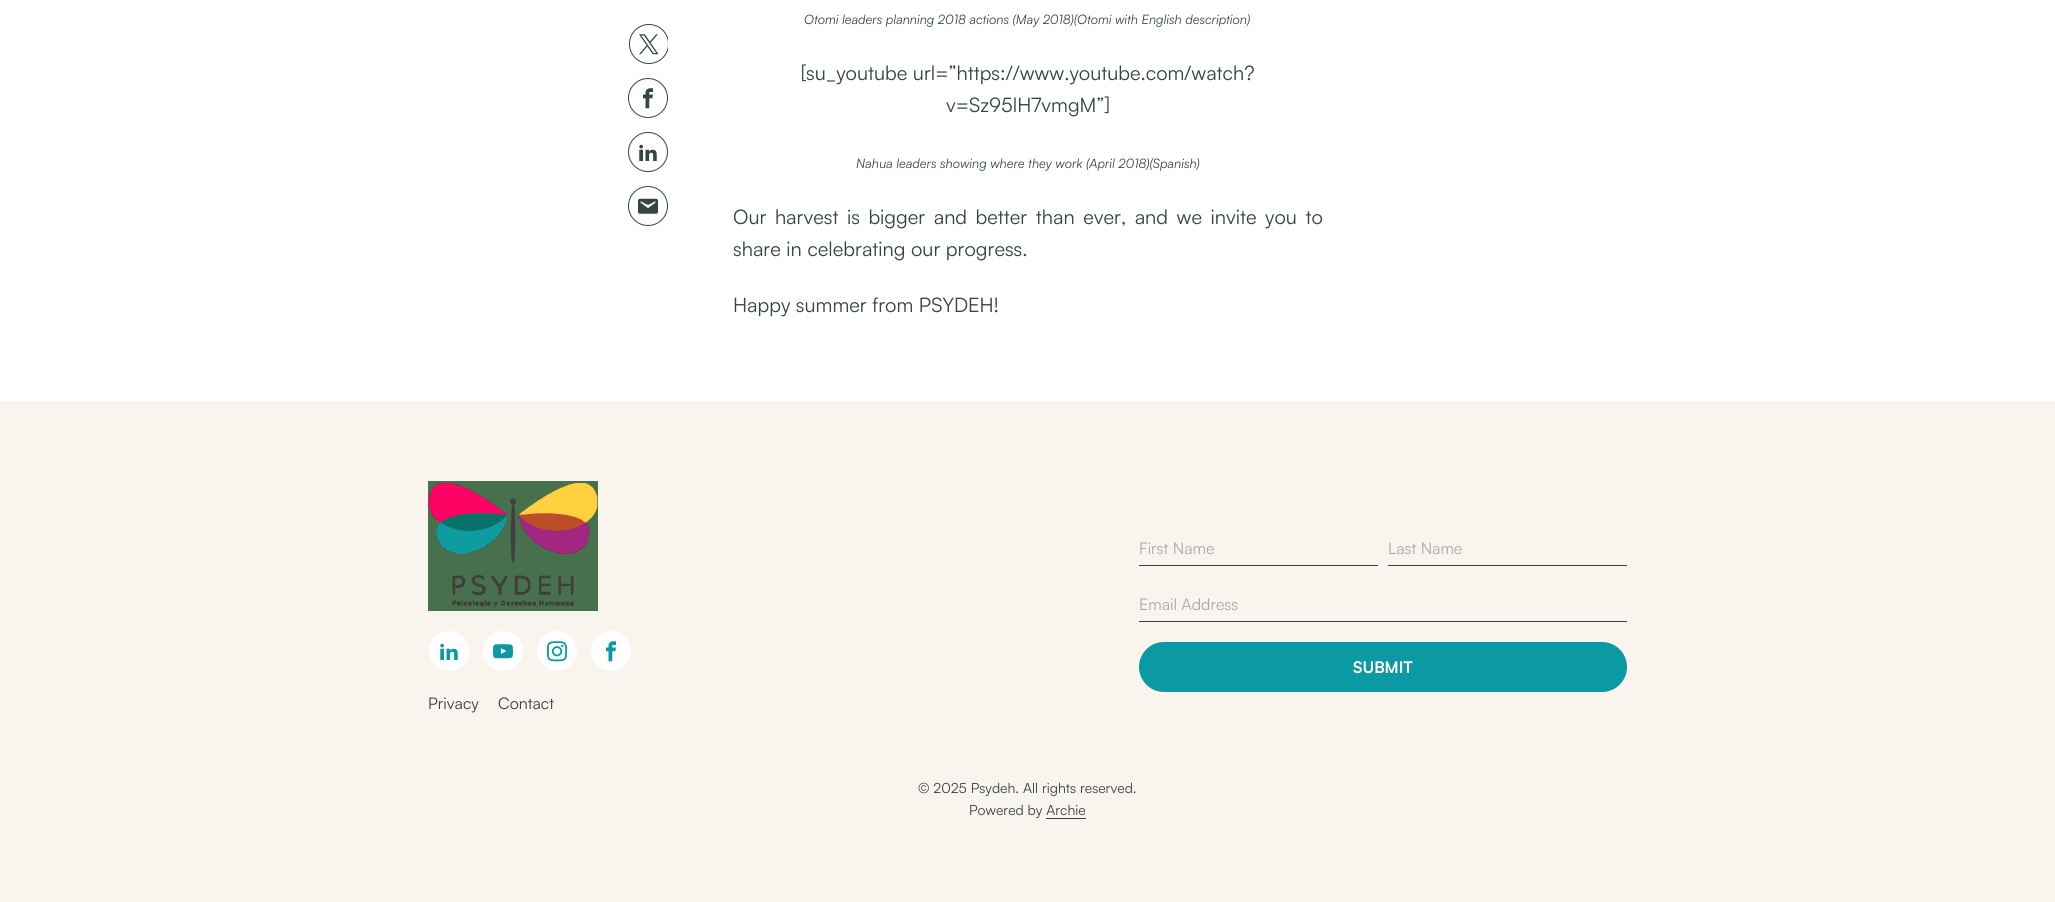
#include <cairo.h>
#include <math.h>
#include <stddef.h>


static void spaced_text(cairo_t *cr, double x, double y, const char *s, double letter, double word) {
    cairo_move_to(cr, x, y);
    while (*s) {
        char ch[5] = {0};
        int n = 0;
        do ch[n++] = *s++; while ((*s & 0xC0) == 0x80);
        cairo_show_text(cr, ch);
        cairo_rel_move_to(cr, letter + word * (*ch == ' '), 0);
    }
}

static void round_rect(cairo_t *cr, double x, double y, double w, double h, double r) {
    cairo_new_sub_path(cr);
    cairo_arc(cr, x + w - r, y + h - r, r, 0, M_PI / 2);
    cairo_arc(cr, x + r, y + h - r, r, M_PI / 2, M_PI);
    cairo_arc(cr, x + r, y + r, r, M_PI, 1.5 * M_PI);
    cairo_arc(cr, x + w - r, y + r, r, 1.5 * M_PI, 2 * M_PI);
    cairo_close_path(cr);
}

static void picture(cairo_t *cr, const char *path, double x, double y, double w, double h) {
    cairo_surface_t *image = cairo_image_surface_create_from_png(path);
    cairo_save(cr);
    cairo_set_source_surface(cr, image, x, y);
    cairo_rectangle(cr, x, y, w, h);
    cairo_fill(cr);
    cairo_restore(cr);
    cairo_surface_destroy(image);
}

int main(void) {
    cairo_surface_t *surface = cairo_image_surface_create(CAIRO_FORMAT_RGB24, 2055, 902);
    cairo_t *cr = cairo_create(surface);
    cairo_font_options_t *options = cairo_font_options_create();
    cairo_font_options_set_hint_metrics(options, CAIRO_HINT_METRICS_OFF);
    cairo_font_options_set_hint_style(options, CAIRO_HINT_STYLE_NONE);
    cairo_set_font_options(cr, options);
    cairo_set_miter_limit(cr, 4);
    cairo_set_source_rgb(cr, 1, 1, 1);
    cairo_paint(cr);
    cairo_save(cr);
    cairo_rectangle(cr, 628, 24, 40, 202);
    cairo_clip(cr);
    cairo_arc(cr, 649, 44, 19.5, 0, 2 * M_PI);
    cairo_set_source_rgb(cr, 0.204, 0.275, 0.267);
    cairo_set_line_width(cr, 1);
    cairo_stroke(cr);
    cairo_restore(cr);
    picture(cr, "img1.png", 639, 34, 20, 21);
    cairo_arc(cr, 648, 98, 19.5, 0, 2 * M_PI);
    cairo_set_source_rgb(cr, 0.204, 0.275, 0.267);
    cairo_set_line_width(cr, 1);
    cairo_stroke(cr);
    picture(cr, "img2.png", 643, 88, 10, 21);
    cairo_arc(cr, 648, 152, 19.5, 0, 2 * M_PI);
    cairo_stroke(cr);
    picture(cr, "img3.png", 639, 144, 18, 17);
    cairo_arc(cr, 648, 206, 19.5, 0, 2 * M_PI);
    cairo_stroke(cr);
    picture(cr, "img4.png", 638, 198, 20, 16);
    cairo_select_font_face(cr, "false", CAIRO_FONT_SLANT_ITALIC, CAIRO_FONT_WEIGHT_NORMAL);
    cairo_set_font_size(cr, 13);
    cairo_move_to(cr, 804, 24);
    cairo_show_text(cr, "Otomi leaders planning 2018 actions (May 2018)(Otomi with English description)");
    cairo_select_font_face(cr, "false", CAIRO_FONT_SLANT_NORMAL, CAIRO_FONT_WEIGHT_NORMAL);
    cairo_set_font_size(cr, 20);
    cairo_move_to(cr, 801, 80);
    cairo_show_text(cr, "[su_youtube url=”https://www.youtube.com/watch?");
    cairo_move_to(cr, 946, 112);
    cairo_show_text(cr, "v=Sz95lH7vmgM”]");
    cairo_select_font_face(cr, "false", CAIRO_FONT_SLANT_ITALIC, CAIRO_FONT_WEIGHT_NORMAL);
    cairo_set_font_size(cr, 13);
    cairo_move_to(cr, 856, 168);
    cairo_show_text(cr, "Nahua leaders showing where they work (April 2018)(Spanish)");
    cairo_select_font_face(cr, "false", CAIRO_FONT_SLANT_NORMAL, CAIRO_FONT_WEIGHT_NORMAL);
    cairo_set_font_size(cr, 20);
    spaced_text(cr, 733, 224, "Our harvest is bigger and better than ever, and we invite you to", 0, 3);
    cairo_move_to(cr, 733, 256);
    cairo_show_text(cr, "share in celebrating our progress.");
    cairo_move_to(cr, 733, 312);
    cairo_show_text(cr, "Happy summer from PSYDEH!");
    cairo_set_source_rgb(cr, 0.976, 0.957, 0.929);
    cairo_rectangle(cr, 0, 401, 2055, 501);
    cairo_fill(cr);
    picture(cr, "img5.png", 428, 481, 170, 130);
    cairo_set_source_rgb(cr, 0.204, 0.275, 0.267);
    cairo_rectangle(cr, 1139, 565, 239, 1);
    cairo_fill(cr);
    cairo_set_font_size(cr, 16);
    cairo_set_source_rgb(cr, 0.667, 0.667, 0.667);
    cairo_move_to(cr, 1139, 554);
    cairo_show_text(cr, "First Name");
    cairo_set_source_rgb(cr, 0.204, 0.275, 0.267);
    cairo_rectangle(cr, 1388, 565, 239, 1);
    cairo_fill(cr);
    cairo_set_source_rgb(cr, 0.667, 0.667, 0.667);
    cairo_move_to(cr, 1388, 554);
    cairo_show_text(cr, "Last Name");
    cairo_set_source_rgb(cr, 0.204, 0.275, 0.267);
    cairo_rectangle(cr, 1139, 621, 488, 1);
    cairo_fill(cr);
    cairo_set_source_rgb(cr, 0.667, 0.667, 0.667);
    cairo_move_to(cr, 1139, 610);
    cairo_show_text(cr, "Email Address");
    cairo_set_source_rgb(cr, 0.043, 0.6, 0.639);
    round_rect(cr, 1140, 643, 486, 48, 24);
    cairo_fill_preserve(cr);
    cairo_set_line_width(cr, 2);
    cairo_stroke(cr);
    cairo_select_font_face(cr, "false", CAIRO_FONT_SLANT_NORMAL, CAIRO_FONT_WEIGHT_BOLD);
    cairo_set_source_rgb(cr, 1, 1, 1);
    cairo_move_to(cr, 1353, 673);
    cairo_show_text(cr, "SUBMIT");
    cairo_new_path(cr);
    cairo_arc(cr, 449, 651, 20, 0, 2 * M_PI);
    cairo_fill(cr);
    picture(cr, "img6.png", 440, 643, 18, 17);
    cairo_arc(cr, 503, 651, 20, 0, 2 * M_PI);
    cairo_fill(cr);
    picture(cr, "img7.png", 493, 644, 20, 15);
    cairo_arc(cr, 557, 651, 20, 0, 2 * M_PI);
    cairo_fill(cr);
    picture(cr, "img8.png", 547, 641, 20, 21);
    cairo_arc(cr, 611, 651, 20, 0, 2 * M_PI);
    cairo_fill(cr);
    picture(cr, "img9.png", 606, 641, 10, 21);
    cairo_select_font_face(cr, "false", CAIRO_FONT_SLANT_NORMAL, CAIRO_FONT_WEIGHT_NORMAL);
    cairo_set_source_rgb(cr, 0.204, 0.275, 0.267);
    cairo_move_to(cr, 428, 709);
    cairo_show_text(cr, "Privacy");
    cairo_move_to(cr, 498, 709);
    cairo_show_text(cr, "Contact");
    cairo_set_font_size(cr, 14);
    cairo_move_to(cr, 918, 793);
    cairo_show_text(cr, "© 2025 Psydeh. All rights reserved.");
    cairo_move_to(cr, 969, 815);
    cairo_show_text(cr, "Powered by Archie");
    cairo_rectangle(cr, 1046, 818, 40, 1);
    cairo_fill(cr);
    cairo_surface_write_to_png(surface, "page.png");
    cairo_font_options_destroy(options);
    cairo_destroy(cr);
    cairo_surface_destroy(surface);
    return 0;
}
